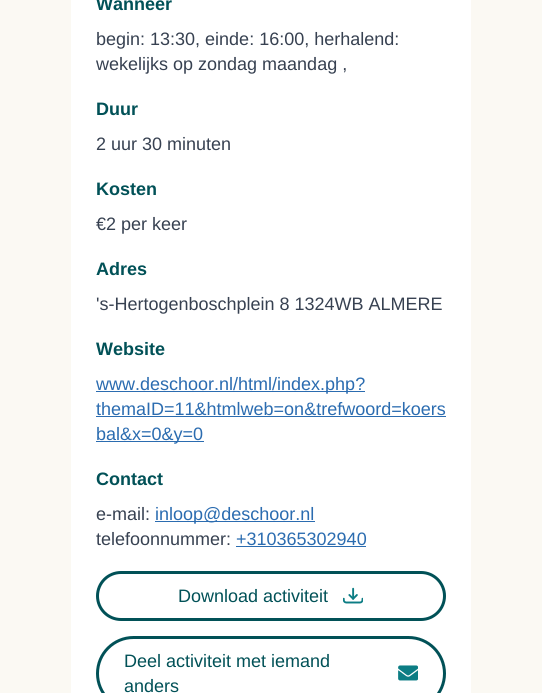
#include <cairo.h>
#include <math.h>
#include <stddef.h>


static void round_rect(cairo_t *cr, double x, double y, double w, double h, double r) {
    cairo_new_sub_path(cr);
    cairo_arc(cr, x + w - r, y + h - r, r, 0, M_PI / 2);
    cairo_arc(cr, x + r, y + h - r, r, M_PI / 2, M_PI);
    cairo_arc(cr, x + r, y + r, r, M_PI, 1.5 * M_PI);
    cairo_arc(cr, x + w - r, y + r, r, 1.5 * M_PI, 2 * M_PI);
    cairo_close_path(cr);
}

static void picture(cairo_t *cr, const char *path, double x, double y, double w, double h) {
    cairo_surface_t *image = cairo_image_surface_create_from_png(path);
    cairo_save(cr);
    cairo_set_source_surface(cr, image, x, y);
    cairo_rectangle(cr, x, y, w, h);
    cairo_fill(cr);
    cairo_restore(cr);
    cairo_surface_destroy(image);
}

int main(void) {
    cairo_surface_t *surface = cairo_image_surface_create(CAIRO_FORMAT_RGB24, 542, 693);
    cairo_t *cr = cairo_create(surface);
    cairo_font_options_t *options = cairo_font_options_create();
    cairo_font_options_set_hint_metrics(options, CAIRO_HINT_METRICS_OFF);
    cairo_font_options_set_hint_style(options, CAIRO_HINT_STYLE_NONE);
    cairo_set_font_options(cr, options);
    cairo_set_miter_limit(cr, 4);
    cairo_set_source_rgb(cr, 0.984, 0.973, 0.953);
    cairo_paint(cr);
    cairo_set_source_rgb(cr, 1, 1, 1);
    cairo_rectangle(cr, 71, 0, 400, 693);
    cairo_fill(cr);
    cairo_select_font_face(cr, "Liberation Sans", CAIRO_FONT_SLANT_NORMAL, CAIRO_FONT_WEIGHT_BOLD);
    cairo_set_font_size(cr, 18);
    cairo_set_source_rgb(cr, 0.004, 0.318, 0.341);
    cairo_move_to(cr, 96, 10);
    cairo_show_text(cr, "Wanneer");
    cairo_select_font_face(cr, "Liberation Sans", CAIRO_FONT_SLANT_NORMAL, CAIRO_FONT_WEIGHT_NORMAL);
    cairo_set_source_rgb(cr, 0.216, 0.255, 0.318);
    cairo_move_to(cr, 96, 45);
    cairo_show_text(cr, "begin: 13:30, einde: 16:00, herhalend:");
    cairo_move_to(cr, 96, 70);
    cairo_show_text(cr, "wekelijks op zondag maandag ,");
    cairo_select_font_face(cr, "Liberation Sans", CAIRO_FONT_SLANT_NORMAL, CAIRO_FONT_WEIGHT_BOLD);
    cairo_set_source_rgb(cr, 0.004, 0.318, 0.341);
    cairo_move_to(cr, 96, 115);
    cairo_show_text(cr, "Duur");
    cairo_select_font_face(cr, "Liberation Sans", CAIRO_FONT_SLANT_NORMAL, CAIRO_FONT_WEIGHT_NORMAL);
    cairo_set_source_rgb(cr, 0.216, 0.255, 0.318);
    cairo_move_to(cr, 96, 150);
    cairo_show_text(cr, "2 uur 30 minuten");
    cairo_select_font_face(cr, "Liberation Sans", CAIRO_FONT_SLANT_NORMAL, CAIRO_FONT_WEIGHT_BOLD);
    cairo_set_source_rgb(cr, 0.004, 0.318, 0.341);
    cairo_move_to(cr, 96, 195);
    cairo_show_text(cr, "Kosten");
    cairo_select_font_face(cr, "Liberation Sans", CAIRO_FONT_SLANT_NORMAL, CAIRO_FONT_WEIGHT_NORMAL);
    cairo_set_source_rgb(cr, 0.216, 0.255, 0.318);
    cairo_move_to(cr, 96, 230);
    cairo_show_text(cr, "€2 per keer");
    cairo_select_font_face(cr, "Liberation Sans", CAIRO_FONT_SLANT_NORMAL, CAIRO_FONT_WEIGHT_BOLD);
    cairo_set_source_rgb(cr, 0.004, 0.318, 0.341);
    cairo_move_to(cr, 96, 275);
    cairo_show_text(cr, "Adres");
    cairo_select_font_face(cr, "Liberation Sans", CAIRO_FONT_SLANT_NORMAL, CAIRO_FONT_WEIGHT_NORMAL);
    cairo_set_source_rgb(cr, 0.216, 0.255, 0.318);
    cairo_move_to(cr, 96, 310);
    cairo_show_text(cr, "'s-Hertogenboschplein 8 1324WB ALMERE");
    cairo_select_font_face(cr, "Liberation Sans", CAIRO_FONT_SLANT_NORMAL, CAIRO_FONT_WEIGHT_BOLD);
    cairo_set_source_rgb(cr, 0.004, 0.318, 0.341);
    cairo_move_to(cr, 96, 355);
    cairo_show_text(cr, "Website");
    cairo_set_source_rgb(cr, 0.169, 0.424, 0.69);
    cairo_rectangle(cr, 96, 391, 269, 1);
    cairo_fill(cr);
    cairo_select_font_face(cr, "Liberation Sans", CAIRO_FONT_SLANT_NORMAL, CAIRO_FONT_WEIGHT_NORMAL);
    cairo_move_to(cr, 96, 390);
    cairo_show_text(cr, "www.deschoor.nl/html/index.php?");
    cairo_move_to(cr, 96, 415);
    cairo_show_text(cr, "themaID=11&htmlweb=on&trefwoord=koers");
    cairo_rectangle(cr, 96, 416, 350, 1);
    cairo_fill(cr);
    cairo_rectangle(cr, 96, 441, 108, 1);
    cairo_fill(cr);
    cairo_move_to(cr, 96, 440);
    cairo_show_text(cr, "bal&x=0&y=0");
    cairo_select_font_face(cr, "Liberation Sans", CAIRO_FONT_SLANT_NORMAL, CAIRO_FONT_WEIGHT_BOLD);
    cairo_set_source_rgb(cr, 0.004, 0.318, 0.341);
    cairo_move_to(cr, 96, 485);
    cairo_show_text(cr, "Contact");
    cairo_select_font_face(cr, "Liberation Sans", CAIRO_FONT_SLANT_NORMAL, CAIRO_FONT_WEIGHT_NORMAL);
    cairo_set_source_rgb(cr, 0.216, 0.255, 0.318);
    cairo_move_to(cr, 96, 520);
    cairo_show_text(cr, "e-mail:");
    cairo_set_source_rgb(cr, 0.169, 0.424, 0.69);
    cairo_rectangle(cr, 155, 521, 160, 1);
    cairo_fill(cr);
    cairo_move_to(cr, 155, 520);
    cairo_show_text(cr, "inloop@deschoor.nl");
    cairo_set_source_rgb(cr, 0.216, 0.255, 0.318);
    cairo_move_to(cr, 96, 545);
    cairo_show_text(cr, "telefoonnummer:");
    cairo_set_source_rgb(cr, 0.169, 0.424, 0.69);
    cairo_move_to(cr, 236, 545);
    cairo_show_text(cr, "+310365302940");
    cairo_rectangle(cr, 236, 546, 130, 1);
    cairo_fill(cr);
    round_rect(cr, 97.5, 572.5, 347, 47, 23.5);
    cairo_set_source_rgb(cr, 0.004, 0.318, 0.341);
    cairo_set_line_width(cr, 3);
    cairo_stroke(cr);
    cairo_move_to(cr, 178, 602);
    cairo_show_text(cr, "Download activiteit");
    picture(cr, "img1.png", 343, 587, 20, 17);
    round_rect(cr, 97.5, 637.5, 347, 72, 36);
    cairo_stroke(cr);
    cairo_move_to(cr, 124, 667);
    cairo_show_text(cr, "Deel activiteit met iemand");
    picture(cr, "img2.png", 398, 665, 20, 16);
    cairo_move_to(cr, 124, 692);
    cairo_show_text(cr, "anders");
    cairo_surface_write_to_png(surface, "page.png");
    cairo_font_options_destroy(options);
    cairo_destroy(cr);
    cairo_surface_destroy(surface);
    return 0;
}
